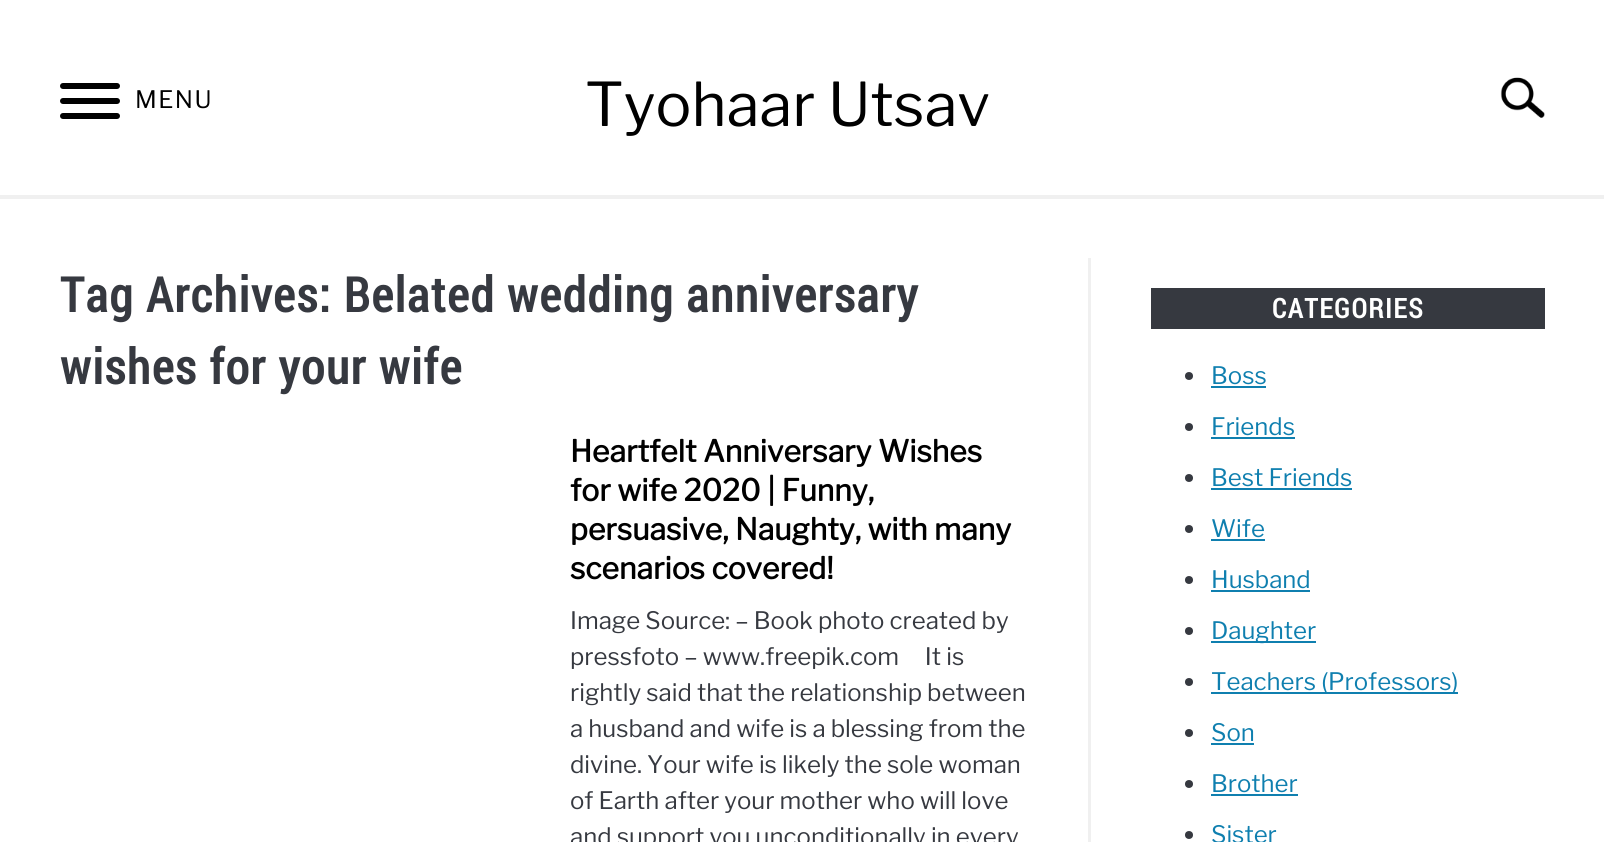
#include <cairo.h>
#include <math.h>
#include <stddef.h>


static void spaced_text(cairo_t *cr, double x, double y, const char *s, double letter, double word) {
    cairo_move_to(cr, x, y);
    while (*s) {
        char ch[5] = {0};
        int n = 0;
        do ch[n++] = *s++; while ((*s & 0xC0) == 0x80);
        cairo_show_text(cr, ch);
        cairo_rel_move_to(cr, letter + word * (*ch == ' '), 0);
    }
}

static void round_rect(cairo_t *cr, double x, double y, double w, double h, double r) {
    cairo_new_sub_path(cr);
    cairo_arc(cr, x + w - r, y + h - r, r, 0, M_PI / 2);
    cairo_arc(cr, x + r, y + h - r, r, M_PI / 2, M_PI);
    cairo_arc(cr, x + r, y + r, r, M_PI, 1.5 * M_PI);
    cairo_arc(cr, x + w - r, y + r, r, 1.5 * M_PI, 2 * M_PI);
    cairo_close_path(cr);
}

static void picture(cairo_t *cr, const char *path, double x, double y, double w, double h) {
    cairo_surface_t *image = cairo_image_surface_create_from_png(path);
    cairo_save(cr);
    cairo_set_source_surface(cr, image, x, y);
    cairo_rectangle(cr, x, y, w, h);
    cairo_fill(cr);
    cairo_restore(cr);
    cairo_surface_destroy(image);
}

int main(void) {
    cairo_surface_t *surface = cairo_image_surface_create(CAIRO_FORMAT_RGB24, 1604, 842);
    cairo_t *cr = cairo_create(surface);
    cairo_font_options_t *options = cairo_font_options_create();
    cairo_font_options_set_hint_metrics(options, CAIRO_HINT_METRICS_OFF);
    cairo_font_options_set_hint_style(options, CAIRO_HINT_STYLE_NONE);
    cairo_set_font_options(cr, options);
    cairo_set_miter_limit(cr, 4);
    cairo_set_source_rgb(cr, 1, 1, 1);
    cairo_paint(cr);
    cairo_set_source_rgb(cr, 0, 0, 0);
    round_rect(cr, 60, 98, 60, 6, 3);
    cairo_fill(cr);
    round_rect(cr, 60, 83, 60, 6, 3);
    cairo_fill(cr);
    round_rect(cr, 60, 113, 60, 6, 3);
    cairo_fill(cr);
    cairo_select_font_face(cr, "Libre Franklin", CAIRO_FONT_SLANT_NORMAL, CAIRO_FONT_WEIGHT_NORMAL);
    cairo_set_font_size(cr, 24);
    spaced_text(cr, 135, 108, "MENU", 1.5, 0);
    cairo_set_font_size(cr, 60);
    cairo_move_to(cr, 585, 126);
    cairo_show_text(cr, "Tyohaar Utsav");
    picture(cr, "img1.png", 1500, 77, 45, 41);
    cairo_set_source_rgb(cr, 0.941, 0.941, 0.941);
    cairo_rectangle(cr, 0, 195, 1604, 4);
    cairo_fill(cr);
    cairo_select_font_face(cr, "Roboto Condensed", CAIRO_FONT_SLANT_NORMAL, CAIRO_FONT_WEIGHT_BOLD);
    cairo_set_font_size(cr, 48);
    cairo_set_source_rgb(cr, 0.212, 0.224, 0.251);
    spaced_text(cr, 60, 312, "Tag Archives: Belated wedding anniversary", 1.5, 0);
    spaced_text(cr, 60, 384, "wishes for your wife", 1.5, 0);
    cairo_select_font_face(cr, "Libre Franklin", CAIRO_FONT_SLANT_NORMAL, CAIRO_FONT_WEIGHT_BOLD);
    cairo_set_font_size(cr, 30);
    cairo_set_source_rgb(cr, 0, 0, 0);
    cairo_move_to(cr, 570, 462);
    cairo_show_text(cr, "Heartfelt Anniversary Wishes");
    cairo_move_to(cr, 570, 501);
    cairo_show_text(cr, "for wife 2020 | Funny,");
    cairo_move_to(cr, 570, 540);
    cairo_show_text(cr, "persuasive, Naughty, with many");
    cairo_move_to(cr, 570, 579);
    cairo_show_text(cr, "scenarios covered!");
    cairo_select_font_face(cr, "Libre Franklin", CAIRO_FONT_SLANT_NORMAL, CAIRO_FONT_WEIGHT_NORMAL);
    cairo_set_font_size(cr, 24);
    cairo_set_source_rgb(cr, 0.212, 0.224, 0.251);
    cairo_move_to(cr, 570, 629);
    cairo_show_text(cr, "Image Source: – Book photo created by");
    cairo_move_to(cr, 570, 665);
    cairo_show_text(cr, "pressfoto – www.freepik.com     It is");
    cairo_move_to(cr, 570, 701);
    cairo_show_text(cr, "rightly said that the relationship between");
    cairo_move_to(cr, 570, 737);
    cairo_show_text(cr, "a husband and wife is a blessing from the");
    cairo_move_to(cr, 570, 773);
    cairo_show_text(cr, "divine. Your wife is likely the sole woman");
    cairo_move_to(cr, 570, 809);
    cairo_show_text(cr, "of Earth after your mother who will love");
    cairo_move_to(cr, 570, 845);
    cairo_show_text(cr, "and support you unconditionally in every");
    cairo_set_source_rgb(cr, 0.941, 0.941, 0.941);
    cairo_rectangle(cr, 1088, 258, 3, 584);
    cairo_fill(cr);
    cairo_set_source_rgb(cr, 0.212, 0.224, 0.251);
    cairo_rectangle(cr, 1151, 288, 394, 41);
    cairo_fill(cr);
    cairo_select_font_face(cr, "Roboto Condensed", CAIRO_FONT_SLANT_NORMAL, CAIRO_FONT_WEIGHT_BOLD);
    cairo_set_font_size(cr, 27);
    cairo_set_source_rgb(cr, 1, 1, 1);
    spaced_text(cr, 1272, 318, "CATEGORIES", 1.5, 0);
    cairo_set_source_rgb(cr, 0.212, 0.224, 0.251);
    cairo_new_path(cr);
    cairo_arc(cr, 1189, 376, 4, 0, 2 * M_PI);
    cairo_fill(cr);
    cairo_select_font_face(cr, "Libre Franklin", CAIRO_FONT_SLANT_NORMAL, CAIRO_FONT_WEIGHT_NORMAL);
    cairo_set_font_size(cr, 24);
    cairo_set_source_rgb(cr, 0.059, 0.498, 0.686);
    cairo_move_to(cr, 1211, 384);
    cairo_show_text(cr, "Boss");
    cairo_rectangle(cr, 1211, 386, 55, 2);
    cairo_fill(cr);
    cairo_set_source_rgb(cr, 0.212, 0.224, 0.251);
    cairo_arc(cr, 1189, 427, 4, 0, 2 * M_PI);
    cairo_fill(cr);
    cairo_set_source_rgb(cr, 0.059, 0.498, 0.686);
    cairo_move_to(cr, 1211, 435);
    cairo_show_text(cr, "Friends");
    cairo_rectangle(cr, 1211, 437, 84, 2);
    cairo_fill(cr);
    cairo_set_source_rgb(cr, 0.212, 0.224, 0.251);
    cairo_arc(cr, 1189, 478, 4, 0, 2 * M_PI);
    cairo_fill(cr);
    cairo_set_source_rgb(cr, 0.059, 0.498, 0.686);
    cairo_move_to(cr, 1211, 486);
    cairo_show_text(cr, "Best Friends");
    cairo_rectangle(cr, 1211, 488, 141, 2);
    cairo_fill(cr);
    cairo_set_source_rgb(cr, 0.212, 0.224, 0.251);
    cairo_arc(cr, 1189, 529, 4, 0, 2 * M_PI);
    cairo_fill(cr);
    cairo_set_source_rgb(cr, 0.059, 0.498, 0.686);
    cairo_move_to(cr, 1211, 537);
    cairo_show_text(cr, "Wife");
    cairo_rectangle(cr, 1211, 539, 54, 2);
    cairo_fill(cr);
    cairo_set_source_rgb(cr, 0.212, 0.224, 0.251);
    cairo_arc(cr, 1189, 580, 4, 0, 2 * M_PI);
    cairo_fill(cr);
    cairo_set_source_rgb(cr, 0.059, 0.498, 0.686);
    cairo_move_to(cr, 1211, 588);
    cairo_show_text(cr, "Husband");
    cairo_rectangle(cr, 1211, 590, 99, 2);
    cairo_fill(cr);
    cairo_set_source_rgb(cr, 0.212, 0.224, 0.251);
    cairo_arc(cr, 1189, 631, 4, 0, 2 * M_PI);
    cairo_fill(cr);
    cairo_set_source_rgb(cr, 0.059, 0.498, 0.686);
    cairo_rectangle(cr, 1211, 641, 105, 2);
    cairo_fill(cr);
    cairo_move_to(cr, 1211, 639);
    cairo_show_text(cr, "Daughter");
    cairo_set_source_rgb(cr, 0.212, 0.224, 0.251);
    cairo_new_path(cr);
    cairo_arc(cr, 1189, 682, 4, 0, 2 * M_PI);
    cairo_fill(cr);
    cairo_set_source_rgb(cr, 0.059, 0.498, 0.686);
    cairo_rectangle(cr, 1211, 692, 247, 2);
    cairo_fill(cr);
    cairo_move_to(cr, 1211, 690);
    cairo_show_text(cr, "Teachers (Professors)");
    cairo_set_source_rgb(cr, 0.212, 0.224, 0.251);
    cairo_new_path(cr);
    cairo_arc(cr, 1189, 733, 4, 0, 2 * M_PI);
    cairo_fill(cr);
    cairo_set_source_rgb(cr, 0.059, 0.498, 0.686);
    cairo_move_to(cr, 1211, 741);
    cairo_show_text(cr, "Son");
    cairo_rectangle(cr, 1211, 743, 43, 2);
    cairo_fill(cr);
    cairo_set_source_rgb(cr, 0.212, 0.224, 0.251);
    cairo_arc(cr, 1189, 784, 4, 0, 2 * M_PI);
    cairo_fill(cr);
    cairo_set_source_rgb(cr, 0.059, 0.498, 0.686);
    cairo_move_to(cr, 1211, 792);
    cairo_show_text(cr, "Brother");
    cairo_rectangle(cr, 1211, 794, 87, 2);
    cairo_fill(cr);
    cairo_set_source_rgb(cr, 0.212, 0.224, 0.251);
    cairo_arc(cr, 1189, 835, 4, 0, 2 * M_PI);
    cairo_fill(cr);
    cairo_set_source_rgb(cr, 0.059, 0.498, 0.686);
    cairo_move_to(cr, 1211, 843);
    cairo_show_text(cr, "Sister");
    cairo_surface_write_to_png(surface, "page.png");
    cairo_font_options_destroy(options);
    cairo_destroy(cr);
    cairo_surface_destroy(surface);
    return 0;
}
